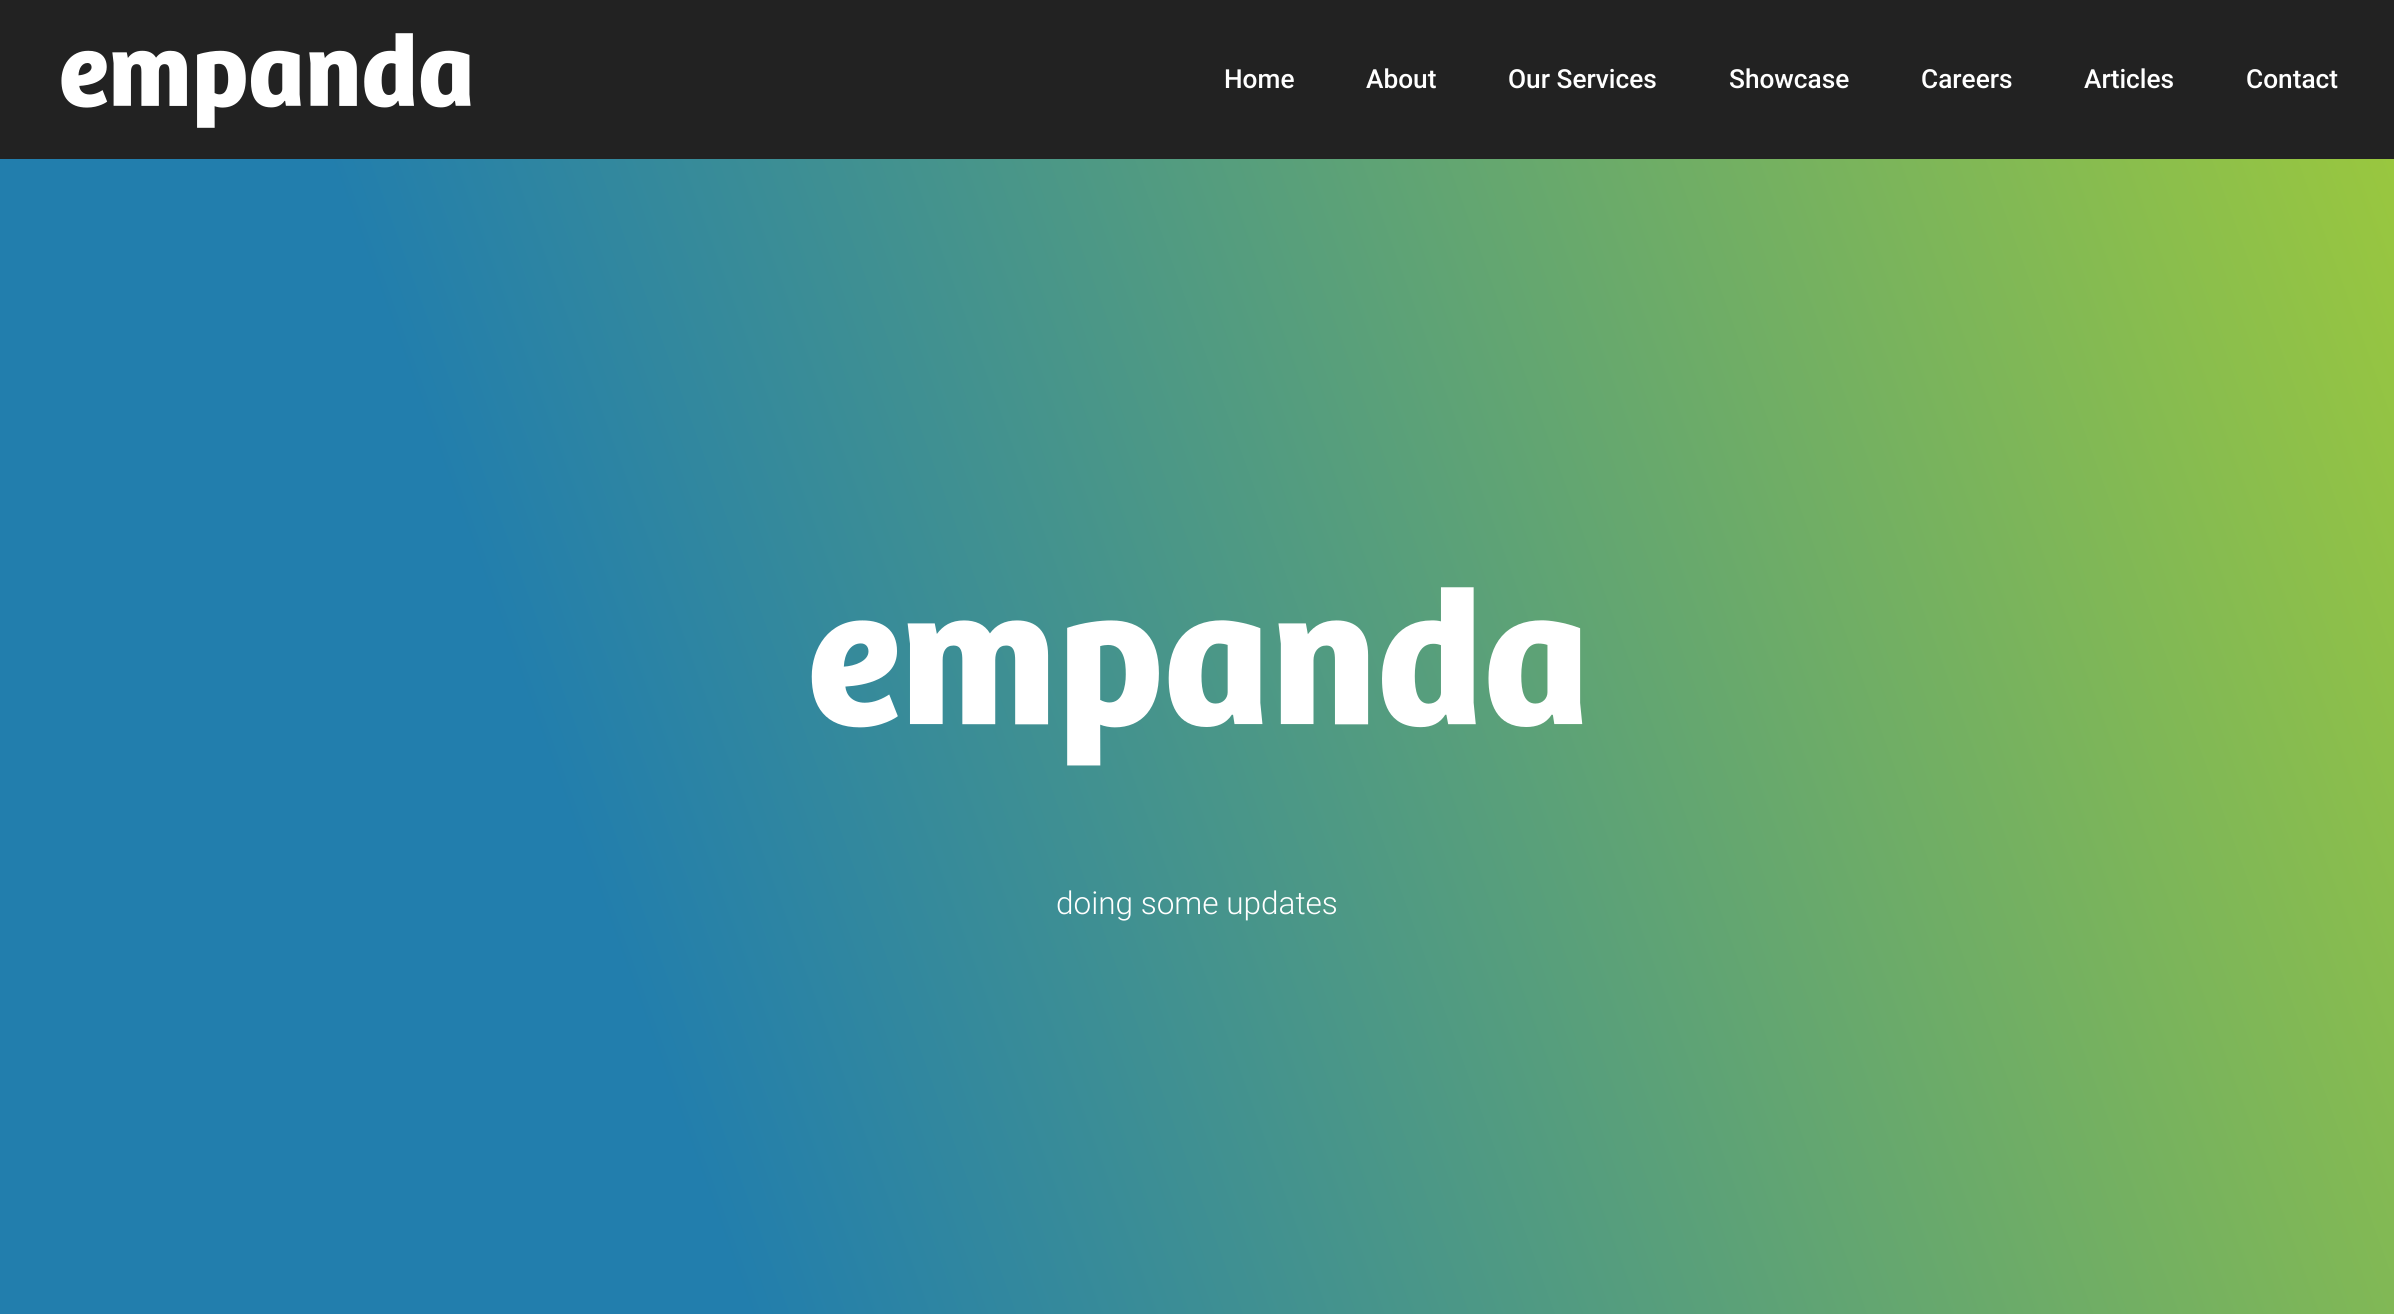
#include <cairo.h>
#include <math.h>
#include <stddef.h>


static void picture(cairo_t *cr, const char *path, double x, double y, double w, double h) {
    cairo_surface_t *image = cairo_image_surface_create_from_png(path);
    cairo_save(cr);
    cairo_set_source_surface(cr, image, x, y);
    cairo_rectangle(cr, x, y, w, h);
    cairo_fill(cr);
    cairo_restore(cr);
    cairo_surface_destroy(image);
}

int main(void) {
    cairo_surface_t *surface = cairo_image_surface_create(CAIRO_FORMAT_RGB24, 2394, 1314);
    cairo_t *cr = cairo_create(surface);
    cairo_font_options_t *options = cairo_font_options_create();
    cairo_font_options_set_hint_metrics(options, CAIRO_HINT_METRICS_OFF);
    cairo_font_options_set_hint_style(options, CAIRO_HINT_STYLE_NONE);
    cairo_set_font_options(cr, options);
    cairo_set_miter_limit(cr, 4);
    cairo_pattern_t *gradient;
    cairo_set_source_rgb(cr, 0.133, 0.133, 0.133);
    cairo_paint(cr);
    picture(cr, "img1.png", 61, 33, 410, 95);
    cairo_select_font_face(cr, "Roboto Medium", CAIRO_FONT_SLANT_NORMAL, CAIRO_FONT_WEIGHT_NORMAL);
    cairo_set_font_size(cr, 26.25);
    cairo_set_source_rgb(cr, 1, 1, 1);
    cairo_move_to(cr, 1224, 88);
    cairo_show_text(cr, "Home");
    cairo_move_to(cr, 1366, 88);
    cairo_show_text(cr, "About");
    cairo_move_to(cr, 1508, 88);
    cairo_show_text(cr, "Our Services");
    cairo_move_to(cr, 1729, 88);
    cairo_show_text(cr, "Showcase");
    cairo_move_to(cr, 1921, 88);
    cairo_show_text(cr, "Careers");
    cairo_move_to(cr, 2084, 88);
    cairo_show_text(cr, "Articles");
    cairo_move_to(cr, 2246, 88);
    cairo_show_text(cr, "Contact");
    gradient = cairo_pattern_create_linear(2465, 355, -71, 1278);
    cairo_pattern_add_color_stop_rgba(gradient, 0, 0.6, 0.78, 0.247, 1);
    cairo_pattern_add_color_stop_rgba(gradient, 0.72, 0.133, 0.494, 0.678, 1);
    cairo_set_source(cr, gradient);
    cairo_pattern_destroy(gradient);
    cairo_rectangle(cr, 0, 159, 2394, 1155);
    cairo_fill(cr);
    picture(cr, "img2.png", 811, 587, 772, 179);
    cairo_select_font_face(cr, "Roboto Light", CAIRO_FONT_SLANT_NORMAL, CAIRO_FONT_WEIGHT_NORMAL);
    cairo_set_font_size(cr, 31.5);
    cairo_set_source_rgb(cr, 1, 1, 1);
    cairo_move_to(cr, 1056, 914);
    cairo_show_text(cr, "doing some updates");
    cairo_surface_write_to_png(surface, "page.png");
    cairo_font_options_destroy(options);
    cairo_destroy(cr);
    cairo_surface_destroy(surface);
    return 0;
}
